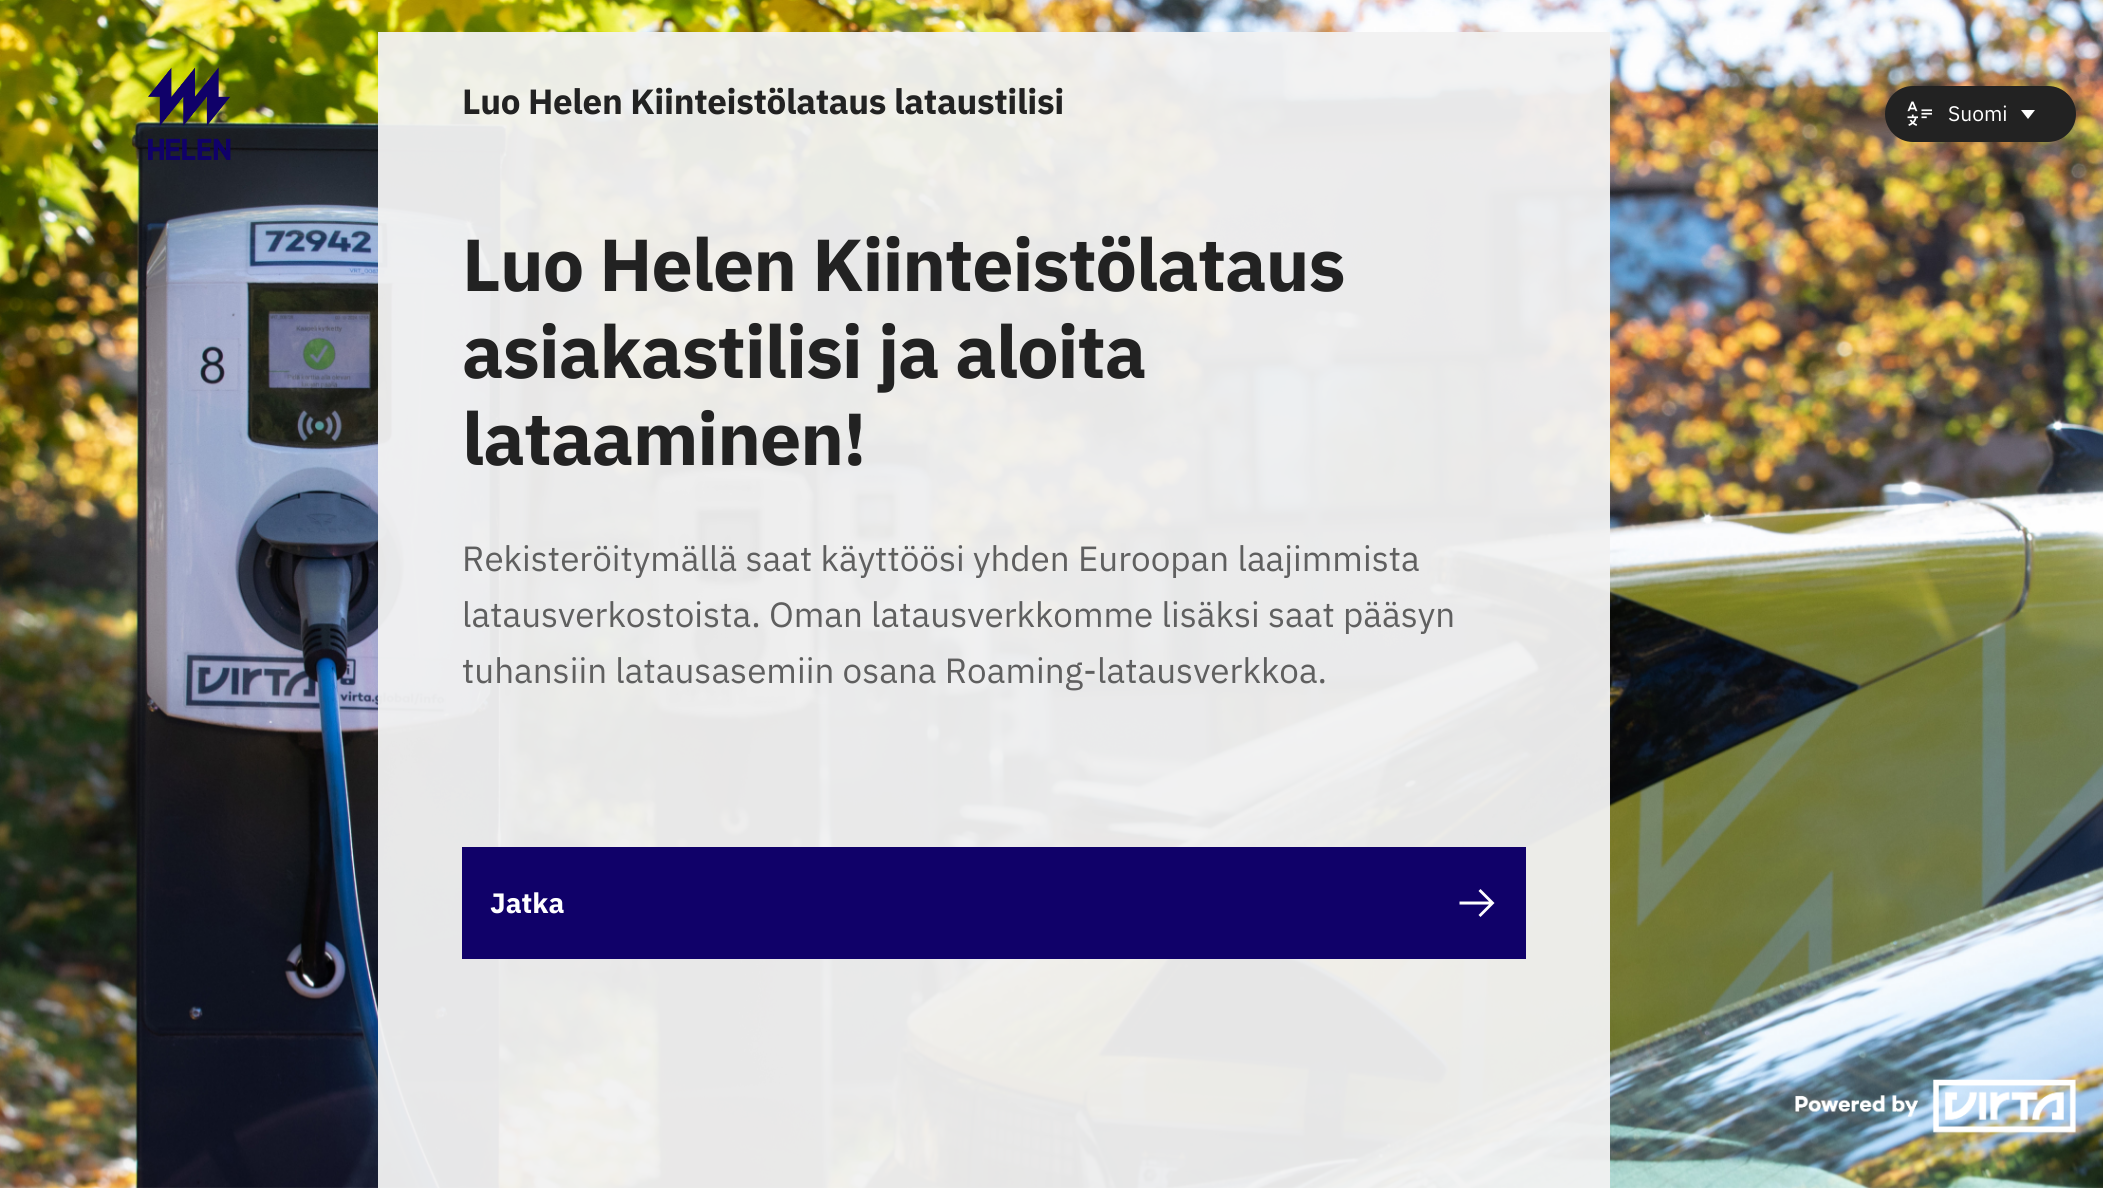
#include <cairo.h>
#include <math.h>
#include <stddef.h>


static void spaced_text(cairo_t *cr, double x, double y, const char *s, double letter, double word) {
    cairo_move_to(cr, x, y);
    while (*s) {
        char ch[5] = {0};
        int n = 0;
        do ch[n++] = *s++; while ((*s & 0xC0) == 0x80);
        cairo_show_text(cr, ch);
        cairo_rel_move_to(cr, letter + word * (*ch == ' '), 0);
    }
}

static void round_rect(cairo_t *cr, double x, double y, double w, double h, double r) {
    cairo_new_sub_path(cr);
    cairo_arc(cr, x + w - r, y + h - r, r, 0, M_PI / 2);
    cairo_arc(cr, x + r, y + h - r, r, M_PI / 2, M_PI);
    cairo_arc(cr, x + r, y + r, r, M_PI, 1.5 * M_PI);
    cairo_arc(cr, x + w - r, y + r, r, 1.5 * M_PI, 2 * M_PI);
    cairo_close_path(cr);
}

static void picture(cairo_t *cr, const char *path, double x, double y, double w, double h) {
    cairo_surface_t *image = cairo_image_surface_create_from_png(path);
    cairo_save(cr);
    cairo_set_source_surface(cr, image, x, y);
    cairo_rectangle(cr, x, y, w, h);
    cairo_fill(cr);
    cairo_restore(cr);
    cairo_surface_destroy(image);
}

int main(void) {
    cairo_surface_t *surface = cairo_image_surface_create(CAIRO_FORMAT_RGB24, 2103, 1188);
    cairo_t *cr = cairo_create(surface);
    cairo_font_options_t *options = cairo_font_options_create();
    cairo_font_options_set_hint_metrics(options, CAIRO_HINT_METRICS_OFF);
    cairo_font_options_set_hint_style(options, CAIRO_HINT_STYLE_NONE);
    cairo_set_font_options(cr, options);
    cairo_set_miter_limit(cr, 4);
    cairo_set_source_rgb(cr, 1, 1, 1);
    cairo_paint(cr);
    picture(cr, "img1.png", 0, 0, 2103, 1188);
    picture(cr, "img2.png", 148, 67, 83, 93);
    cairo_set_source_rgba(cr, 0.949, 0.949, 0.949, 0.95);
    cairo_rectangle(cr, 378, 32, 1232, 1156);
    cairo_fill(cr);
    cairo_select_font_face(cr, "IBM Plex Sans", CAIRO_FONT_SLANT_NORMAL, CAIRO_FONT_WEIGHT_BOLD);
    cairo_set_font_size(cr, 35);
    cairo_set_source_rgb(cr, 0.133, 0.133, 0.133);
    spaced_text(cr, 462, 114, "Luo Helen Kiinteistölataus lataustilisi", -0.35, 0);
    cairo_set_font_size(cr, 73.5);
    spaced_text(cr, 462, 291, "Luo Helen Kiinteistölataus", -1.05, 0);
    spaced_text(cr, 462, 378, "asiakastilisi ja aloita", -1.05, 0);
    spaced_text(cr, 462, 465, "lataaminen!", -1.05, 0);
    cairo_select_font_face(cr, "IBM Plex Sans", CAIRO_FONT_SLANT_NORMAL, CAIRO_FONT_WEIGHT_NORMAL);
    cairo_set_font_size(cr, 35);
    cairo_set_source_rgb(cr, 0.373, 0.373, 0.373);
    cairo_move_to(cr, 462, 571);
    cairo_show_text(cr, "Rekisteröitymällä saat käyttöösi yhden Euroopan laajimmista");
    cairo_move_to(cr, 462, 627);
    cairo_show_text(cr, "latausverkostoista. Oman latausverkkomme lisäksi saat pääsyn");
    cairo_move_to(cr, 462, 683);
    cairo_show_text(cr, "tuhansiin latausasemiin osana Roaming-latausverkkoa.");
    cairo_set_source_rgb(cr, 0.063, 0.004, 0.412);
    cairo_rectangle(cr, 462, 847, 1064, 112);
    cairo_fill(cr);
    cairo_select_font_face(cr, "IBM Plex Sans", CAIRO_FONT_SLANT_NORMAL, CAIRO_FONT_WEIGHT_BOLD);
    cairo_set_font_size(cr, 28);
    cairo_set_source_rgb(cr, 1, 1, 1);
    cairo_move_to(cr, 490, 913);
    cairo_show_text(cr, "Jatka");
    cairo_new_path(cr);
    cairo_move_to(cr, 1480.5, 889);
    cairo_line_to(cr, 1478.5, 891);
    cairo_line_to(cr, 1489, 901.5);
    cairo_line_to(cr, 1459.5, 901.5);
    cairo_line_to(cr, 1459.5, 904.5);
    cairo_line_to(cr, 1489, 904.5);
    cairo_line_to(cr, 1478.5, 915);
    cairo_line_to(cr, 1480.5, 917);
    cairo_line_to(cr, 1494.5, 903);
    cairo_close_path(cr);
    cairo_fill(cr);
    cairo_set_source_rgb(cr, 0.133, 0.133, 0.133);
    round_rect(cr, 1885, 86, 191, 56, 28);
    cairo_fill(cr);
    picture(cr, "img3.png", 1907, 101, 25, 25);
    cairo_select_font_face(cr, "IBM Plex Sans", CAIRO_FONT_SLANT_NORMAL, CAIRO_FONT_WEIGHT_NORMAL);
    cairo_set_font_size(cr, 21);
    cairo_set_source_rgb(cr, 1, 1, 1);
    cairo_move_to(cr, 1948, 121);
    cairo_show_text(cr, "Suomi");
    cairo_new_path(cr);
    cairo_move_to(cr, 2021, 110);
    cairo_line_to(cr, 2035, 110);
    cairo_line_to(cr, 2028, 119);
    cairo_close_path(cr);
    cairo_fill(cr);
    picture(cr, "img4.png", 1795, 1079, 281, 54);
    cairo_surface_write_to_png(surface, "page.png");
    cairo_font_options_destroy(options);
    cairo_destroy(cr);
    cairo_surface_destroy(surface);
    return 0;
}
